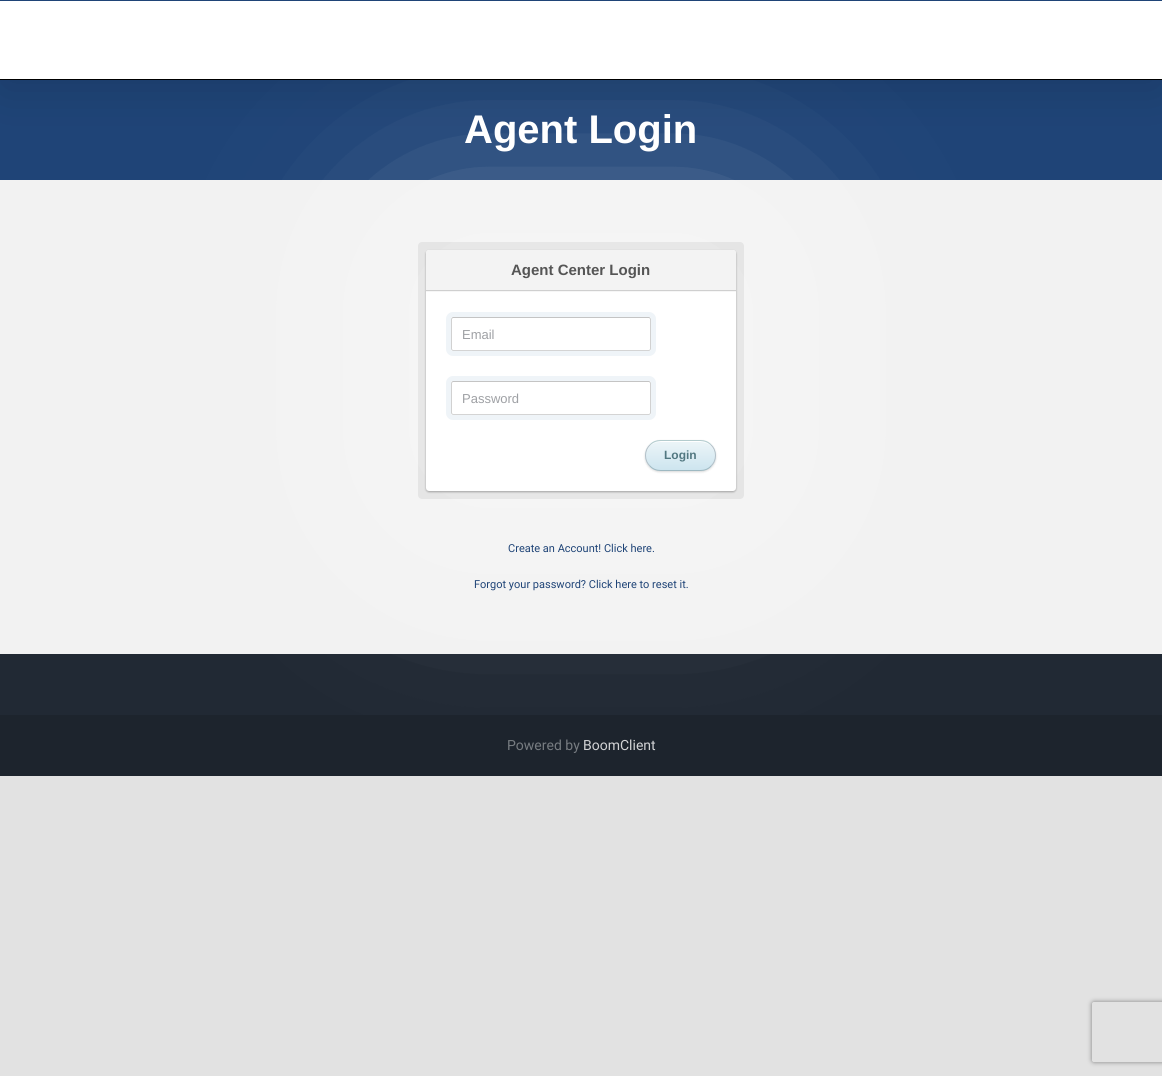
#include <cairo.h>
#include <math.h>
#include <stddef.h>


static void round_rect(cairo_t *cr, double x, double y, double w, double h, double r) {
    cairo_new_sub_path(cr);
    cairo_arc(cr, x + w - r, y + h - r, r, 0, M_PI / 2);
    cairo_arc(cr, x + r, y + h - r, r, M_PI / 2, M_PI);
    cairo_arc(cr, x + r, y + r, r, M_PI, 1.5 * M_PI);
    cairo_arc(cr, x + w - r, y + r, r, 1.5 * M_PI, 2 * M_PI);
    cairo_close_path(cr);
}

static void shadow(cairo_t *cr, double x, double y, double w, double h, double r, double blur, double alpha) {
    cairo_push_group_with_content(cr, CAIRO_CONTENT_ALPHA);
    cairo_set_operator(cr, CAIRO_OPERATOR_SOURCE);
    for (int i = 15; i >= -15 && fmin(w, h) + blur * i / 3 > 0; i -= 2) {
        double e = blur * i / 6;
        cairo_set_source_rgba(cr, 0, 0, 0, alpha * erfc((i - 1) / 8.5) / 2);
        round_rect(cr, x - e, y - e, w + 2 * e, h + 2 * e, fmax(0, fmin(r + e + blur * .6, fmin(w, h) / 2 + e)));
        cairo_fill(cr);
    }
    cairo_pattern_t *soft = cairo_pop_group(cr);
    cairo_mask(cr, soft);
    cairo_pattern_destroy(soft);
}

int main(void) {
    cairo_surface_t *surface = cairo_image_surface_create(CAIRO_FORMAT_RGB24, 1162, 1076);
    cairo_t *cr = cairo_create(surface);
    cairo_font_options_t *options = cairo_font_options_create();
    cairo_font_options_set_hint_metrics(options, CAIRO_HINT_METRICS_OFF);
    cairo_font_options_set_hint_style(options, CAIRO_HINT_STYLE_NONE);
    cairo_set_font_options(cr, options);
    cairo_set_miter_limit(cr, 4);
    cairo_pattern_t *gradient;
    cairo_set_source_rgb(cr, 0.886, 0.886, 0.886);
    cairo_paint(cr);
    cairo_set_source_rgb(cr, 0.949, 0.949, 0.949);
    cairo_rectangle(cr, 0, 180, 1162, 474);
    cairo_fill(cr);
    cairo_set_source_rgb(cr, 0.122, 0.267, 0.467);
    cairo_rectangle(cr, 0, 80, 1162, 100);
    cairo_fill(cr);
    cairo_set_source_rgb(cr, 0, 0, 0);
    shadow(cr, 2, 12, 1158, 76, 0, 25, 0.14);
    cairo_set_source_rgb(cr, 0.875, 0.875, 0.875);
    round_rect(cr, 418, 242, 326, 257, 4);
    cairo_fill(cr);
    cairo_set_source_rgb(cr, 0.129, 0.161, 0.204);
    cairo_rectangle(cr, 0, 654, 1162, 61);
    cairo_fill(cr);
    cairo_set_source_rgb(cr, 1, 1, 1);
    shadow(cr, 426, 250, 310, 241, 3, 100, 0.5);
    cairo_set_source_rgb(cr, 0.122, 0.267, 0.467);
    cairo_rectangle(cr, 0, 0, 1162, 1);
    cairo_fill(cr);
    cairo_set_source_rgb(cr, 1, 1, 1);
    cairo_rectangle(cr, 0, 1, 1162, 78);
    cairo_fill(cr);
    cairo_set_source_rgb(cr, 0, 0, 0);
    cairo_rectangle(cr, 0, 79, 1162, 1);
    cairo_fill(cr);
    cairo_select_font_face(cr, "Liberation Sans", CAIRO_FONT_SLANT_NORMAL, CAIRO_FONT_WEIGHT_BOLD);
    cairo_set_font_size(cr, 40);
    cairo_set_source_rgb(cr, 1, 1, 1);
    cairo_move_to(cr, 464, 143);
    cairo_show_text(cr, "Agent Login");
    cairo_set_source_rgb(cr, 0, 0, 0);
    shadow(cr, 426, 251, 310, 241, 3, 1, 0.3);
    cairo_set_source_rgb(cr, 1, 1, 1);
    round_rect(cr, 426, 250, 310, 241, 3);
    cairo_fill(cr);
    cairo_set_source_rgb(cr, 0.961, 0.961, 0.961);
    cairo_rectangle(cr, 426, 291, 310, 1);
    cairo_fill(cr);
    cairo_set_source_rgb(cr, 0.953, 0.953, 0.953);
    cairo_new_path(cr);
    cairo_move_to(cr, 429, 250);
    cairo_line_to(cr, 733, 250);
    cairo_curve_to(cr, 734.5, 250, 736, 251.5, 736, 253);
    cairo_line_to(cr, 736, 291);
    cairo_line_to(cr, 426, 291);
    cairo_line_to(cr, 426, 253);
    cairo_curve_to(cr, 426, 251.5, 427.5, 250, 429, 250);
    cairo_close_path(cr);
    cairo_fill(cr);
    cairo_set_source_rgb(cr, 0.812, 0.812, 0.812);
    cairo_rectangle(cr, 426, 290, 310, 1);
    cairo_fill(cr);
    cairo_set_font_size(cr, 15);
    cairo_set_source_rgb(cr, 0.333, 0.333, 0.333);
    cairo_move_to(cr, 511, 275);
    cairo_show_text(cr, "Agent Center Login");
    cairo_new_path(cr);
    cairo_move_to(cr, 452, 318);
    cairo_line_to(cr, 453, 317.5);
    cairo_line_to(cr, 649, 317.5);
    cairo_line_to(cr, 650, 318);
    cairo_set_source_rgb(cr, 0.769, 0.769, 0.769);
    cairo_set_line_width(cr, 1);
    cairo_stroke(cr);
    cairo_new_path(cr);
    cairo_move_to(cr, 650, 318);
    cairo_line_to(cr, 650.5, 319);
    cairo_line_to(cr, 650.5, 349);
    cairo_line_to(cr, 650, 350);
    cairo_set_source_rgb(cr, 0.82, 0.82, 0.82);
    cairo_stroke(cr);
    cairo_new_path(cr);
    cairo_move_to(cr, 650, 350);
    cairo_line_to(cr, 649, 350.5);
    cairo_line_to(cr, 453, 350.5);
    cairo_line_to(cr, 452, 350);
    cairo_set_source_rgb(cr, 0.831, 0.831, 0.831);
    cairo_stroke(cr);
    cairo_new_path(cr);
    cairo_move_to(cr, 452, 350);
    cairo_line_to(cr, 451.5, 349);
    cairo_line_to(cr, 451.5, 319);
    cairo_line_to(cr, 452, 318);
    cairo_set_source_rgb(cr, 0.82, 0.82, 0.82);
    cairo_stroke(cr);
    round_rect(cr, 448.5, 314.5, 205, 39, 4.5);
    cairo_set_source_rgb(cr, 0.937, 0.957, 0.969);
    cairo_set_line_width(cr, 5);
    cairo_stroke(cr);
    cairo_select_font_face(cr, "Liberation Sans", CAIRO_FONT_SLANT_NORMAL, CAIRO_FONT_WEIGHT_NORMAL);
    cairo_set_font_size(cr, 13);
    cairo_set_source_rgb(cr, 0.62, 0.627, 0.643);
    cairo_move_to(cr, 462, 339);
    cairo_show_text(cr, "Email");
    cairo_new_path(cr);
    cairo_move_to(cr, 452, 382);
    cairo_line_to(cr, 453, 381.5);
    cairo_line_to(cr, 649, 381.5);
    cairo_line_to(cr, 650, 382);
    cairo_set_source_rgb(cr, 0.769, 0.769, 0.769);
    cairo_set_line_width(cr, 1);
    cairo_stroke(cr);
    cairo_new_path(cr);
    cairo_move_to(cr, 650, 382);
    cairo_line_to(cr, 650.5, 383);
    cairo_line_to(cr, 650.5, 413);
    cairo_line_to(cr, 650, 414);
    cairo_set_source_rgb(cr, 0.82, 0.82, 0.82);
    cairo_stroke(cr);
    cairo_new_path(cr);
    cairo_move_to(cr, 650, 414);
    cairo_line_to(cr, 649, 414.5);
    cairo_line_to(cr, 453, 414.5);
    cairo_line_to(cr, 452, 414);
    cairo_set_source_rgb(cr, 0.831, 0.831, 0.831);
    cairo_stroke(cr);
    cairo_new_path(cr);
    cairo_move_to(cr, 452, 414);
    cairo_line_to(cr, 451.5, 413);
    cairo_line_to(cr, 451.5, 383);
    cairo_line_to(cr, 452, 382);
    cairo_set_source_rgb(cr, 0.82, 0.82, 0.82);
    cairo_stroke(cr);
    round_rect(cr, 448.5, 378.5, 205, 39, 4.5);
    cairo_set_source_rgb(cr, 0.937, 0.957, 0.969);
    cairo_set_line_width(cr, 5);
    cairo_stroke(cr);
    cairo_set_source_rgb(cr, 0.62, 0.627, 0.643);
    cairo_move_to(cr, 462, 403);
    cairo_show_text(cr, "Password");
    cairo_set_source_rgb(cr, 0, 0, 0);
    shadow(cr, 645, 441, 71, 31, 15.5, 1, 0.15);
    cairo_save(cr);
    round_rect(cr, 645, 440, 71, 31, 15.5);
    cairo_clip(cr);
    gradient = cairo_pattern_create_linear(681, 441, 681, 470);
    cairo_pattern_add_color_stop_rgba(gradient, 0, 0.929, 0.961, 0.973, 1);
    cairo_pattern_add_color_stop_rgba(gradient, 1, 0.804, 0.898, 0.937, 1);
    cairo_set_source(cr, gradient);
    cairo_pattern_destroy(gradient);
    cairo_rectangle(cr, 645, 441, 71, 29);
    cairo_fill(cr);
    cairo_restore(cr);
    cairo_set_source_rgb(cr, 1, 1, 1);
    cairo_new_path(cr);
    cairo_move_to(cr, 660, 442);
    cairo_line_to(cr, 700, 442);
    cairo_curve_to(cr, 709, 442, 715, 448, 715, 456);
    cairo_curve_to(cr, 715, 437, 692, 441, 680, 441);
    cairo_curve_to(cr, 669, 441, 646, 437, 646, 456);
    cairo_curve_to(cr, 646, 448, 652, 442, 660, 442);
    cairo_close_path(cr);
    cairo_fill(cr);
    cairo_new_path(cr);
    cairo_move_to(cr, 650, 445);
    cairo_curve_to(cr, 652.5, 442, 656.5, 440.5, 660.5, 440.5);
    cairo_line_to(cr, 700.5, 440.5);
    cairo_curve_to(cr, 704.5, 440.5, 708.5, 442, 711, 445);
    cairo_set_source_rgb(cr, 0.706, 0.8, 0.808);
    cairo_set_line_width(cr, 1);
    cairo_stroke(cr);
    cairo_new_path(cr);
    cairo_move_to(cr, 711, 445);
    cairo_curve_to(cr, 717, 450.5, 717, 460.5, 711, 466);
    cairo_set_source_rgb(cr, 0.702, 0.753, 0.784);
    cairo_stroke(cr);
    cairo_new_path(cr);
    cairo_move_to(cr, 711, 466);
    cairo_curve_to(cr, 708.5, 469, 704.5, 470.5, 700.5, 470.5);
    cairo_line_to(cr, 660.5, 470.5);
    cairo_curve_to(cr, 656.5, 470.5, 652.5, 469, 650, 466);
    cairo_set_source_rgb(cr, 0.62, 0.725, 0.761);
    cairo_stroke(cr);
    cairo_new_path(cr);
    cairo_move_to(cr, 650, 466);
    cairo_curve_to(cr, 644, 460.5, 644, 450.5, 650, 445);
    cairo_set_source_rgb(cr, 0.702, 0.753, 0.784);
    cairo_stroke(cr);
    cairo_select_font_face(cr, "Liberation Sans", CAIRO_FONT_SLANT_NORMAL, CAIRO_FONT_WEIGHT_BOLD);
    cairo_set_font_size(cr, 12);
    cairo_set_source_rgb(cr, 0.322, 0.471, 0.506);
    cairo_move_to(cr, 664, 459);
    cairo_show_text(cr, "Login");
    cairo_select_font_face(cr, "Roboto", CAIRO_FONT_SLANT_NORMAL, CAIRO_FONT_WEIGHT_NORMAL);
    cairo_set_font_size(cr, 11);
    cairo_set_source_rgb(cr, 0.122, 0.267, 0.467);
    cairo_move_to(cr, 508, 552);
    cairo_show_text(cr, "Create an Account! Click here.");
    cairo_move_to(cr, 474, 588);
    cairo_show_text(cr, "Forgot your password? Click here to reset it.");
    cairo_set_source_rgb(cr, 0.114, 0.141, 0.176);
    cairo_rectangle(cr, 0, 715, 1162, 61);
    cairo_fill(cr);
    cairo_set_font_size(cr, 14);
    cairo_set_source_rgb(cr, 0.467, 0.486, 0.506);
    cairo_move_to(cr, 507, 750);
    cairo_show_text(cr, "Powered by");
    cairo_set_source_rgb(cr, 0.824, 0.827, 0.835);
    cairo_move_to(cr, 583, 750);
    cairo_show_text(cr, "BoomClient");
    cairo_save(cr);
    cairo_set_fill_rule(cr, CAIRO_FILL_RULE_EVEN_ODD);
    cairo_new_path(cr);
    cairo_move_to(cr, 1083, 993);
    cairo_line_to(cr, 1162, 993);
    cairo_line_to(cr, 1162, 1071);
    cairo_line_to(cr, 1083, 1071);
    cairo_close_path(cr);
    cairo_move_to(cr, 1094, 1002);
    cairo_line_to(cr, 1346, 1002);
    cairo_curve_to(cr, 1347, 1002, 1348, 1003, 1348, 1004);
    cairo_line_to(cr, 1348, 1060);
    cairo_curve_to(cr, 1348, 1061, 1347, 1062, 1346, 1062);
    cairo_line_to(cr, 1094, 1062);
    cairo_curve_to(cr, 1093, 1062, 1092, 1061, 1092, 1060);
    cairo_line_to(cr, 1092, 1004);
    cairo_curve_to(cr, 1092, 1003, 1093, 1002, 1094, 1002);
    cairo_close_path(cr);
    cairo_clip(cr);
    cairo_set_source_rgb(cr, 0.502, 0.502, 0.502);
    shadow(cr, 1092, 1002, 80, 60, 2, 2.5, 1);
    cairo_restore(cr);
    cairo_surface_write_to_png(surface, "page.png");
    cairo_font_options_destroy(options);
    cairo_destroy(cr);
    cairo_surface_destroy(surface);
    return 0;
}
